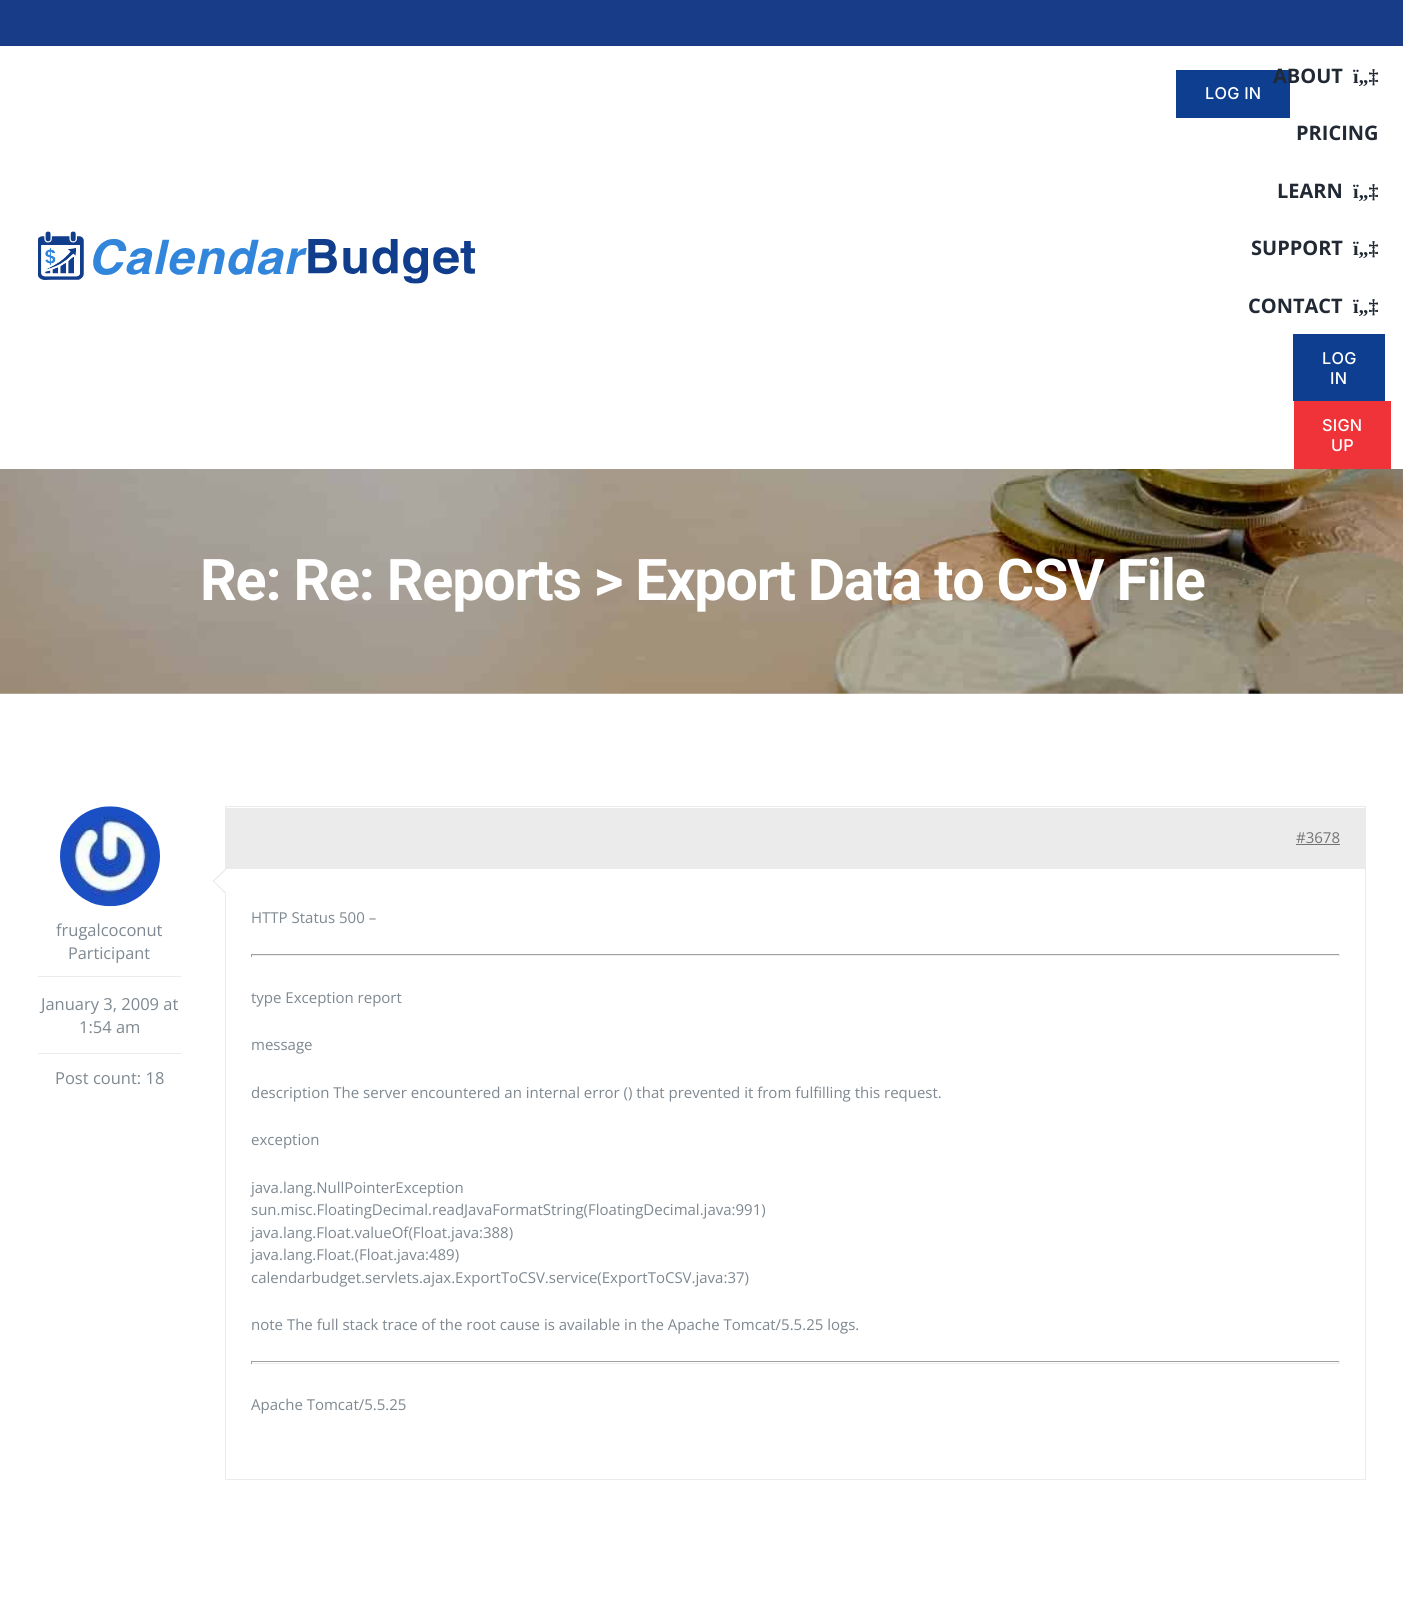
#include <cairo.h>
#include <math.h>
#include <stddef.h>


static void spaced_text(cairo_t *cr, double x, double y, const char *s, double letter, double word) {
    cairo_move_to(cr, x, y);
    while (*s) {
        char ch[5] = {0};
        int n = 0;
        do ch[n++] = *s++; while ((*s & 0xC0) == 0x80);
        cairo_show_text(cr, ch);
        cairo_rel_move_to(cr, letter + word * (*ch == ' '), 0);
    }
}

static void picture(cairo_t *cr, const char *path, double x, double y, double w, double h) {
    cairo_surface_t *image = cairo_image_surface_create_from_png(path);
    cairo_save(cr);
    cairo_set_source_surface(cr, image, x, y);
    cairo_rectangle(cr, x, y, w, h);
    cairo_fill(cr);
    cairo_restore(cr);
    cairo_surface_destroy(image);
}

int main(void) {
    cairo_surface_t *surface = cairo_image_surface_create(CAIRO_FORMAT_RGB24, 1403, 1615);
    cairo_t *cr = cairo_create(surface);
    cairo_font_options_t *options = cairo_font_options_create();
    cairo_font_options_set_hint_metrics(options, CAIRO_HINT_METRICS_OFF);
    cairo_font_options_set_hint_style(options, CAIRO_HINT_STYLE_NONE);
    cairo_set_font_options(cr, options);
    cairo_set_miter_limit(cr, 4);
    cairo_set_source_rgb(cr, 1, 1, 1);
    cairo_paint(cr);
    cairo_set_source_rgb(cr, 0.094, 0.235, 0.529);
    cairo_rectangle(cr, 0, 0, 1403, 46);
    cairo_fill(cr);
    cairo_set_source_rgb(cr, 0.055, 0.243, 0.561);
    cairo_rectangle(cr, 1176, 70, 114, 48);
    cairo_fill(cr);
    cairo_select_font_face(cr, "Inter Medium", CAIRO_FONT_SLANT_NORMAL, CAIRO_FONT_WEIGHT_NORMAL);
    cairo_set_font_size(cr, 16.25);
    cairo_set_source_rgb(cr, 1, 1, 1);
    spaced_text(cr, 1205, 99, "LOG IN", 0.25, 0);
    cairo_select_font_face(cr, "Open Sans", CAIRO_FONT_SLANT_NORMAL, CAIRO_FONT_WEIGHT_BOLD);
    cairo_set_font_size(cr, 20);
    cairo_set_source_rgb(cr, 0.129, 0.161, 0.204);
    cairo_move_to(cr, 1273, 83);
    cairo_show_text(cr, "ABOUT");
    cairo_select_font_face(cr, "Liberation Serif", CAIRO_FONT_SLANT_NORMAL, CAIRO_FONT_WEIGHT_BOLD);
    cairo_move_to(cr, 1353, 83);
    cairo_show_text(cr, "ï„‡");
    cairo_select_font_face(cr, "Open Sans", CAIRO_FONT_SLANT_NORMAL, CAIRO_FONT_WEIGHT_BOLD);
    cairo_move_to(cr, 1296, 140);
    cairo_show_text(cr, "PRICING");
    cairo_move_to(cr, 1277, 198);
    cairo_show_text(cr, "LEARN");
    cairo_select_font_face(cr, "Liberation Serif", CAIRO_FONT_SLANT_NORMAL, CAIRO_FONT_WEIGHT_BOLD);
    cairo_move_to(cr, 1353, 198);
    cairo_show_text(cr, "ï„‡");
    cairo_select_font_face(cr, "Open Sans", CAIRO_FONT_SLANT_NORMAL, CAIRO_FONT_WEIGHT_BOLD);
    cairo_move_to(cr, 1251, 255);
    cairo_show_text(cr, "SUPPORT");
    cairo_select_font_face(cr, "Liberation Serif", CAIRO_FONT_SLANT_NORMAL, CAIRO_FONT_WEIGHT_BOLD);
    cairo_move_to(cr, 1353, 255);
    cairo_show_text(cr, "ï„‡");
    cairo_select_font_face(cr, "Open Sans", CAIRO_FONT_SLANT_NORMAL, CAIRO_FONT_WEIGHT_BOLD);
    cairo_move_to(cr, 1248, 313);
    cairo_show_text(cr, "CONTACT");
    cairo_select_font_face(cr, "Liberation Serif", CAIRO_FONT_SLANT_NORMAL, CAIRO_FONT_WEIGHT_BOLD);
    cairo_move_to(cr, 1353, 313);
    cairo_show_text(cr, "ï„‡");
    cairo_set_source_rgb(cr, 0.055, 0.243, 0.561);
    cairo_rectangle(cr, 1293, 334, 92, 67);
    cairo_fill(cr);
    cairo_select_font_face(cr, "Inter Medium", CAIRO_FONT_SLANT_NORMAL, CAIRO_FONT_WEIGHT_NORMAL);
    cairo_set_font_size(cr, 16.25);
    cairo_set_source_rgb(cr, 1, 1, 1);
    spaced_text(cr, 1322, 364, "LOG", 0.25, 0);
    spaced_text(cr, 1330, 384, "IN", 0.25, 0);
    cairo_set_source_rgb(cr, 0.937, 0.2, 0.22);
    cairo_rectangle(cr, 1294, 401, 97, 68);
    cairo_fill(cr);
    cairo_set_source_rgb(cr, 1, 1, 1);
    spaced_text(cr, 1322, 431, "SIGN", 0.25, 0);
    spaced_text(cr, 1331, 451, "UP", 0.25, 0);
    picture(cr, "img1.png", 38, 231, 437, 53);
    picture(cr, "img2.png", 0, 469, 1403, 225);
    cairo_select_font_face(cr, "Roboto", CAIRO_FONT_SLANT_NORMAL, CAIRO_FONT_WEIGHT_BOLD);
    cairo_set_font_size(cr, 57.5);
    spaced_text(cr, 200, 600, "Re: Re: Reports > Export Data to CSV File", -1.25, 0);
    picture(cr, "img3.png", 60, 806, 100, 101);
    cairo_select_font_face(cr, "Open Sans", CAIRO_FONT_SLANT_NORMAL, CAIRO_FONT_WEIGHT_NORMAL);
    cairo_set_font_size(cr, 16.5);
    cairo_set_source_rgb(cr, 0.494, 0.533, 0.565);
    cairo_move_to(cr, 56, 936);
    cairo_show_text(cr, "frugalcoconut");
    cairo_set_font_size(cr, 16.25);
    cairo_move_to(cr, 68, 959);
    cairo_show_text(cr, "Participant");
    cairo_set_source_rgb(cr, 0.922, 0.918, 0.918);
    cairo_rectangle(cr, 38, 976, 143, 1);
    cairo_fill(cr);
    cairo_rectangle(cr, 38, 1053, 143, 1);
    cairo_fill(cr);
    cairo_set_font_size(cr, 16.5);
    cairo_set_source_rgb(cr, 0.494, 0.533, 0.565);
    cairo_move_to(cr, 41, 1010);
    cairo_show_text(cr, "January 3, 2009 at");
    cairo_move_to(cr, 79, 1033);
    cairo_show_text(cr, "1:54 am");
    cairo_move_to(cr, 55, 1084);
    cairo_show_text(cr, "Post count: 18");
    cairo_rectangle(cr, 225.5, 806.5, 1140, 673);
    cairo_set_source_rgb(cr, 0.922, 0.918, 0.918);
    cairo_set_line_width(cr, 1);
    cairo_stroke(cr);
    cairo_rectangle(cr, 226, 808, 1139, 61);
    cairo_fill(cr);
    cairo_set_font_size(cr, 15);
    cairo_set_source_rgb(cr, 0.455, 0.455, 0.455);
    cairo_move_to(cr, 1296, 843);
    cairo_show_text(cr, "#3678");
    cairo_rectangle(cr, 1296, 844, 44, 1);
    cairo_fill(cr);
    cairo_set_source_rgb(cr, 1, 1, 1);
    cairo_new_path(cr);
    cairo_move_to(cr, 225, 869);
    cairo_line_to(cr, 237.5, 881);
    cairo_line_to(cr, 225, 893.5);
    cairo_line_to(cr, 212.5, 881);
    cairo_close_path(cr);
    cairo_fill(cr);
    cairo_set_source_rgb(cr, 0.922, 0.918, 0.918);
    cairo_new_path(cr);
    cairo_move_to(cr, 213.5, 880.5);
    cairo_line_to(cr, 226, 892.5);
    cairo_line_to(cr, 225, 893.5);
    cairo_line_to(cr, 212.5, 881);
    cairo_close_path(cr);
    cairo_fill(cr);
    cairo_new_path(cr);
    cairo_move_to(cr, 225, 869);
    cairo_line_to(cr, 226, 870);
    cairo_line_to(cr, 213.5, 882);
    cairo_line_to(cr, 212.5, 881);
    cairo_close_path(cr);
    cairo_fill(cr);
    cairo_set_source_rgb(cr, 0.494, 0.533, 0.565);
    cairo_move_to(cr, 251, 923);
    cairo_show_text(cr, "HTTP Status 500 –");
    cairo_set_source_rgb(cr, 0.624, 0.624, 0.624);
    cairo_rectangle(cr, 251, 954, 1089, 1);
    cairo_fill(cr);
    cairo_set_source_rgb(cr, 0.933, 0.933, 0.933);
    cairo_rectangle(cr, 1339, 954, 1, 3);
    cairo_fill(cr);
    cairo_rectangle(cr, 251, 955, 1089, 1);
    cairo_fill(cr);
    cairo_set_source_rgb(cr, 0.624, 0.624, 0.624);
    cairo_rectangle(cr, 251, 954, 1, 3);
    cairo_fill(cr);
    cairo_set_source_rgb(cr, 0.494, 0.533, 0.565);
    cairo_move_to(cr, 251, 1003);
    cairo_show_text(cr, "type Exception report");
    cairo_move_to(cr, 251, 1050);
    cairo_show_text(cr, "message");
    cairo_move_to(cr, 251, 1098);
    cairo_show_text(cr, "description The server encountered an internal error () that prevented it from fulfilling this request.");
    cairo_move_to(cr, 251, 1145);
    cairo_show_text(cr, "exception");
    cairo_move_to(cr, 251, 1193);
    cairo_show_text(cr, "java.lang.NullPointerException");
    cairo_move_to(cr, 251, 1215);
    cairo_show_text(cr, "sun.misc.FloatingDecimal.readJavaFormatString(FloatingDecimal.java:991)");
    cairo_move_to(cr, 251, 1238);
    cairo_show_text(cr, "java.lang.Float.valueOf(Float.java:388)");
    cairo_move_to(cr, 251, 1260);
    cairo_show_text(cr, "java.lang.Float.(Float.java:489)");
    cairo_move_to(cr, 251, 1283);
    cairo_show_text(cr, "calendarbudget.servlets.ajax.ExportToCSV.service(ExportToCSV.java:37)");
    cairo_move_to(cr, 251, 1330);
    cairo_show_text(cr, "note The full stack trace of the root cause is available in the Apache Tomcat/5.5.25 logs.");
    cairo_set_source_rgb(cr, 0.624, 0.624, 0.624);
    cairo_rectangle(cr, 251, 1361, 1089, 1);
    cairo_fill(cr);
    cairo_set_source_rgb(cr, 0.933, 0.933, 0.933);
    cairo_rectangle(cr, 1339, 1361, 1, 3);
    cairo_fill(cr);
    cairo_rectangle(cr, 251, 1363, 1089, 1);
    cairo_fill(cr);
    cairo_set_source_rgb(cr, 0.624, 0.624, 0.624);
    cairo_rectangle(cr, 251, 1361, 1, 3);
    cairo_fill(cr);
    cairo_set_source_rgb(cr, 0.494, 0.533, 0.565);
    cairo_move_to(cr, 251, 1410);
    cairo_show_text(cr, "Apache Tomcat/5.5.25");
    cairo_surface_write_to_png(surface, "page.png");
    cairo_font_options_destroy(options);
    cairo_destroy(cr);
    cairo_surface_destroy(surface);
    return 0;
}
